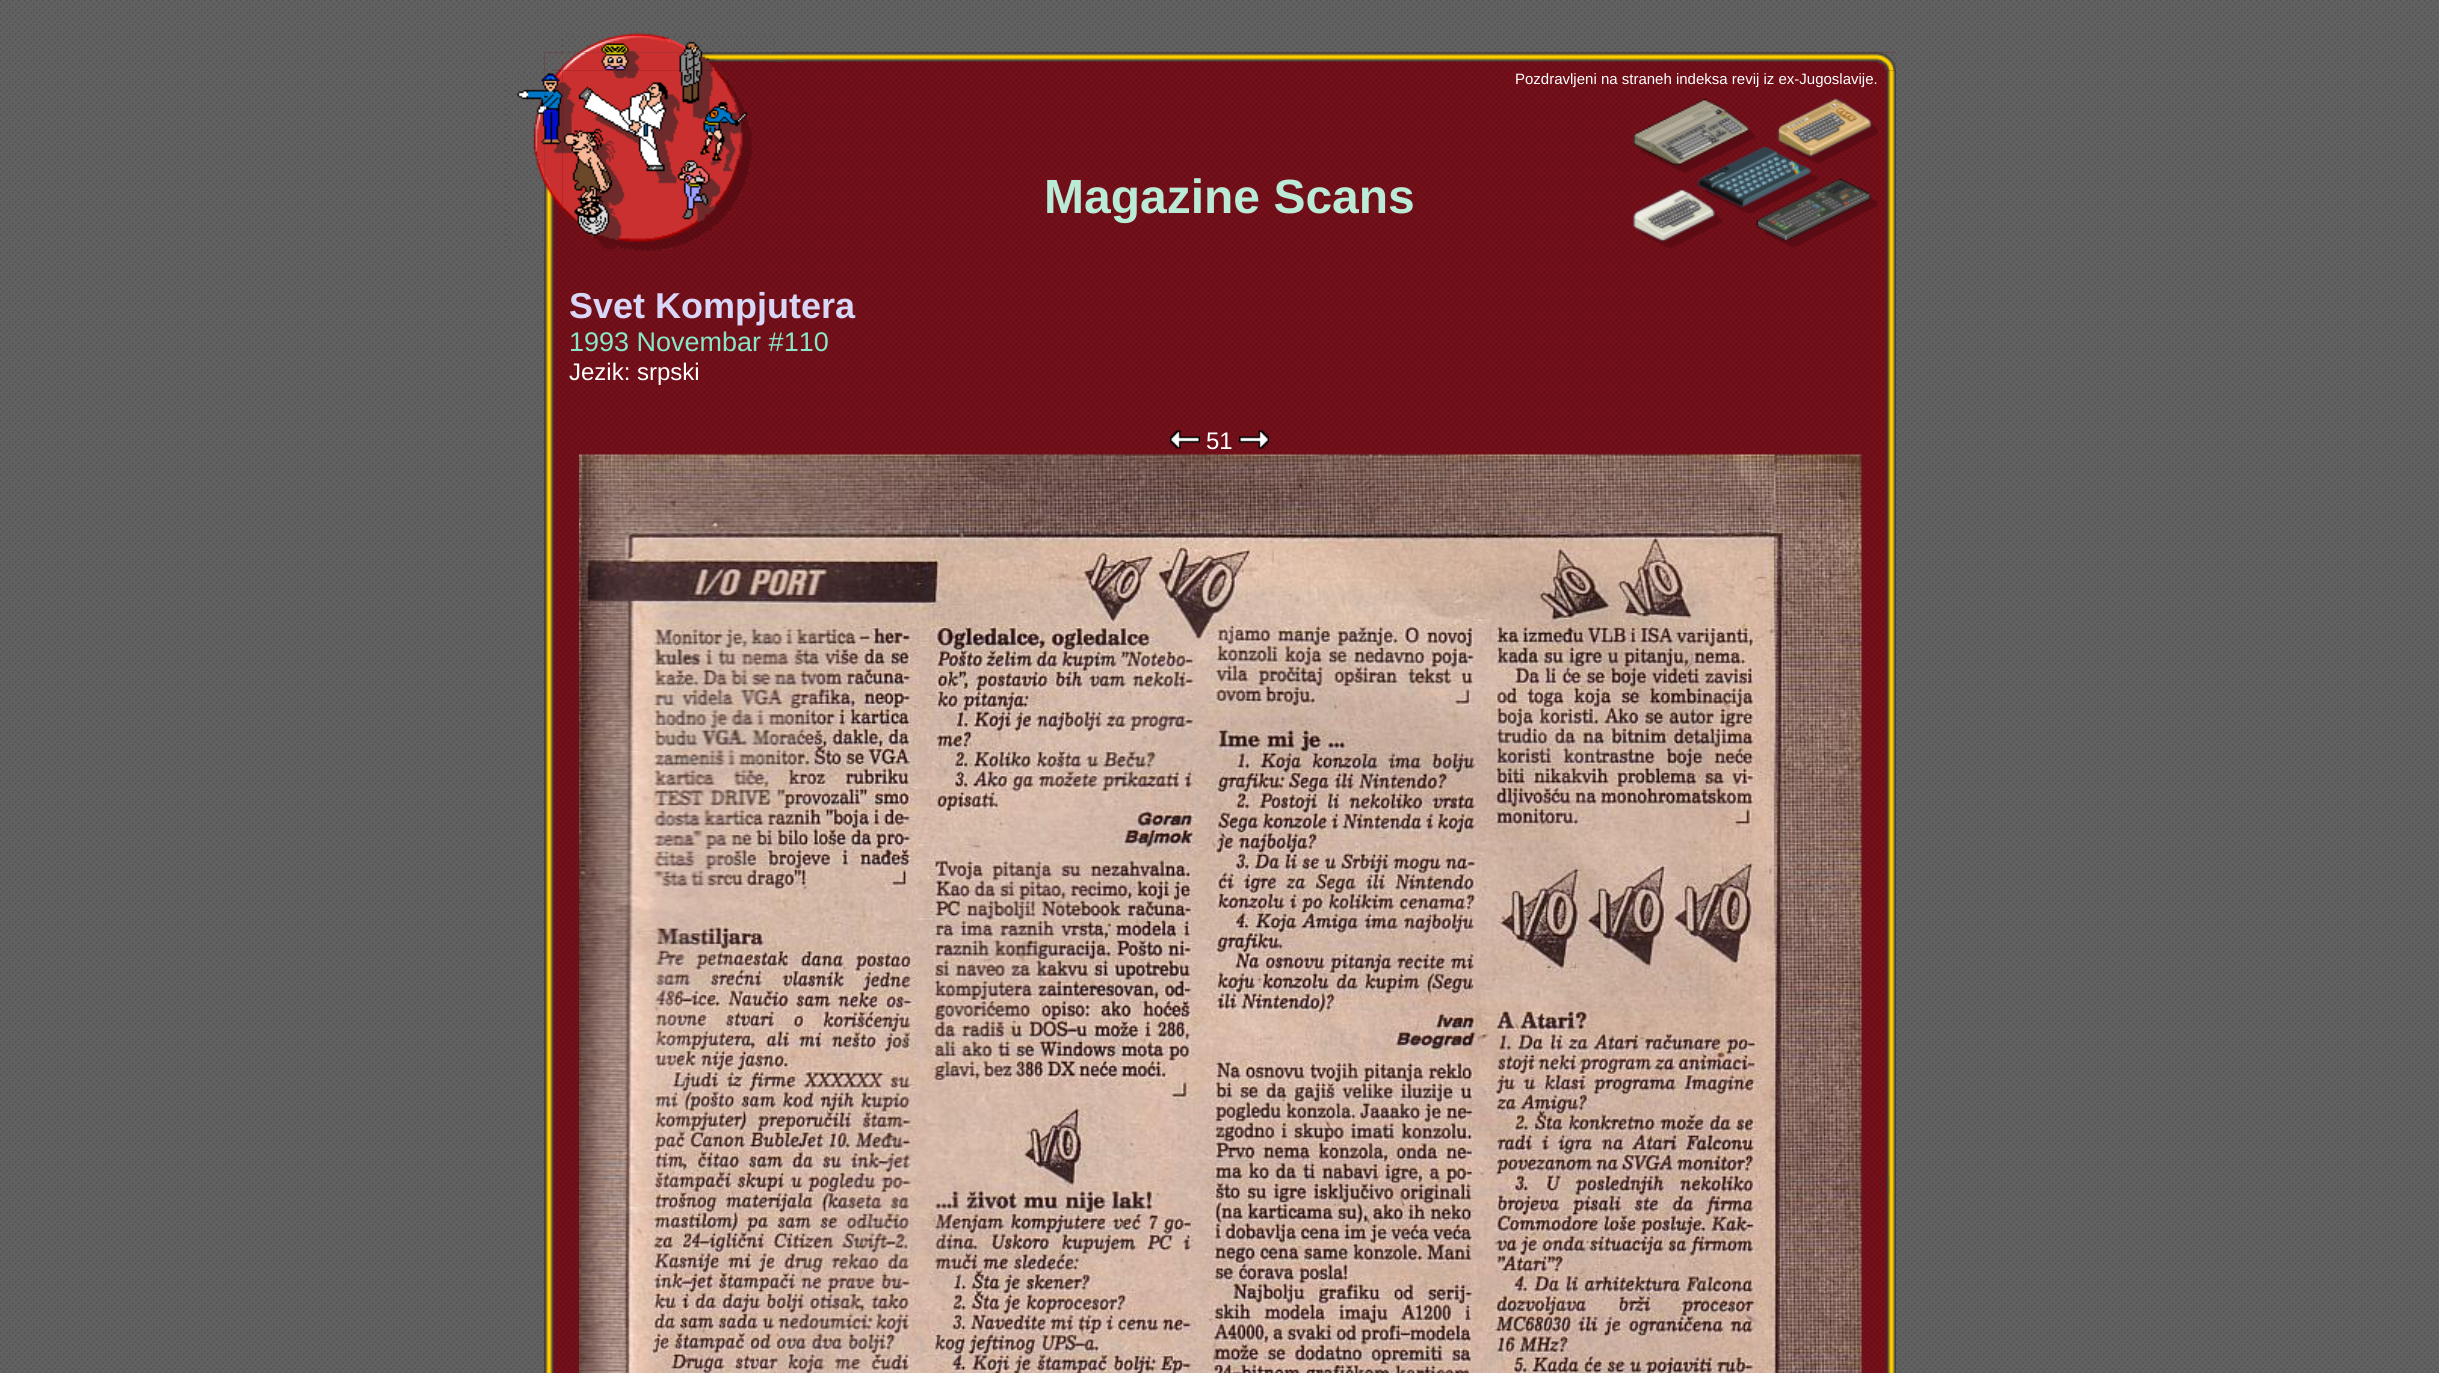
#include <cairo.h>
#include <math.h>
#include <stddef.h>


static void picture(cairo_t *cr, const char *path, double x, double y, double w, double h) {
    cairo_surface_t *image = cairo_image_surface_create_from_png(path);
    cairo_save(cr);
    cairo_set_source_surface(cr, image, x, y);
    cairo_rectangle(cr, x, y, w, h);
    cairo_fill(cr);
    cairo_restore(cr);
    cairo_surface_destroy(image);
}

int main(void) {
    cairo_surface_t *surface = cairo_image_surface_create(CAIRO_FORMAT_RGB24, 2439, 1373);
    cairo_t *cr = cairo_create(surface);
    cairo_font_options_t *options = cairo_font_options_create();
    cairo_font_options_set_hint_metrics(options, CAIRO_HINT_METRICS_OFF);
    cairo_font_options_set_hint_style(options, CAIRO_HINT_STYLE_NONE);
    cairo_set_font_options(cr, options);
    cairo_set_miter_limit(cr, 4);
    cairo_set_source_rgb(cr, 0.38, 0.38, 0.38);
    cairo_paint(cr);
    picture(cr, "img1.png", 0, 0, 2438, 1373);
    picture(cr, "img4.png", 544, 52, 1352, 1321);
    picture(cr, "img6.png", 562, 52, 1316, 10);
    picture(cr, "img2.png", 562, 32, 212, 21);
    picture(cr, "img9.png", 544, 70, 10, 1303);
    picture(cr, "img3.png", 505, 70, 40, 181);
    picture(cr, "img5.png", 544, 52, 19, 19);
    picture(cr, "img7.png", 562, 52, 226, 19);
    picture(cr, "img16.png", 1886, 70, 10, 1303);
    picture(cr, "img8.png", 1878, 52, 18, 19);
    picture(cr, "img10.png", 544, 70, 19, 181);
    picture(cr, "img11.png", 562, 70, 190, 181);
    cairo_select_font_face(cr, "Liberation Sans", CAIRO_FONT_SLANT_NORMAL, CAIRO_FONT_WEIGHT_NORMAL);
    cairo_set_font_size(cr, 15);
    cairo_set_source_rgb(cr, 1, 1, 1);
    cairo_move_to(cr, 1515, 84);
    cairo_show_text(cr, "Pozdravljeni na straneh indeksa revij iz ex-Jugoslavije.");
    cairo_select_font_face(cr, "Liberation Sans", CAIRO_FONT_SLANT_NORMAL, CAIRO_FONT_WEIGHT_BOLD);
    cairo_set_font_size(cr, 48);
    cairo_set_source_rgb(cr, 0.725, 0.918, 0.843);
    cairo_move_to(cr, 1044, 213);
    cairo_show_text(cr, "Magazine Scans");
    picture(cr, "img12.png", 1633, 98, 245, 150);
    cairo_set_font_size(cr, 36);
    cairo_set_source_rgb(cr, 0.851, 0.843, 0.969);
    cairo_move_to(cr, 569, 318);
    cairo_show_text(cr, "Svet Kompjutera");
    cairo_select_font_face(cr, "Liberation Sans", CAIRO_FONT_SLANT_NORMAL, CAIRO_FONT_WEIGHT_NORMAL);
    cairo_set_font_size(cr, 27);
    cairo_set_source_rgb(cr, 0.537, 0.906, 0.78);
    cairo_move_to(cr, 569, 351);
    cairo_show_text(cr, "1993 Novembar #110");
    cairo_set_font_size(cr, 24);
    cairo_set_source_rgb(cr, 1, 1, 1);
    cairo_move_to(cr, 569, 380);
    cairo_show_text(cr, "Jezik: srpski");
    picture(cr, "img13.png", 1170, 430, 30, 19);
    cairo_move_to(cr, 1206, 449);
    cairo_show_text(cr, "51");
    picture(cr, "img14.png", 1239, 430, 30, 19);
    picture(cr, "img15.png", 579, 454, 1283, 919);
    picture(cr, "img17.png", 1886, 1176, 9, 18);
    cairo_surface_write_to_png(surface, "page.png");
    cairo_font_options_destroy(options);
    cairo_destroy(cr);
    cairo_surface_destroy(surface);
    return 0;
}
